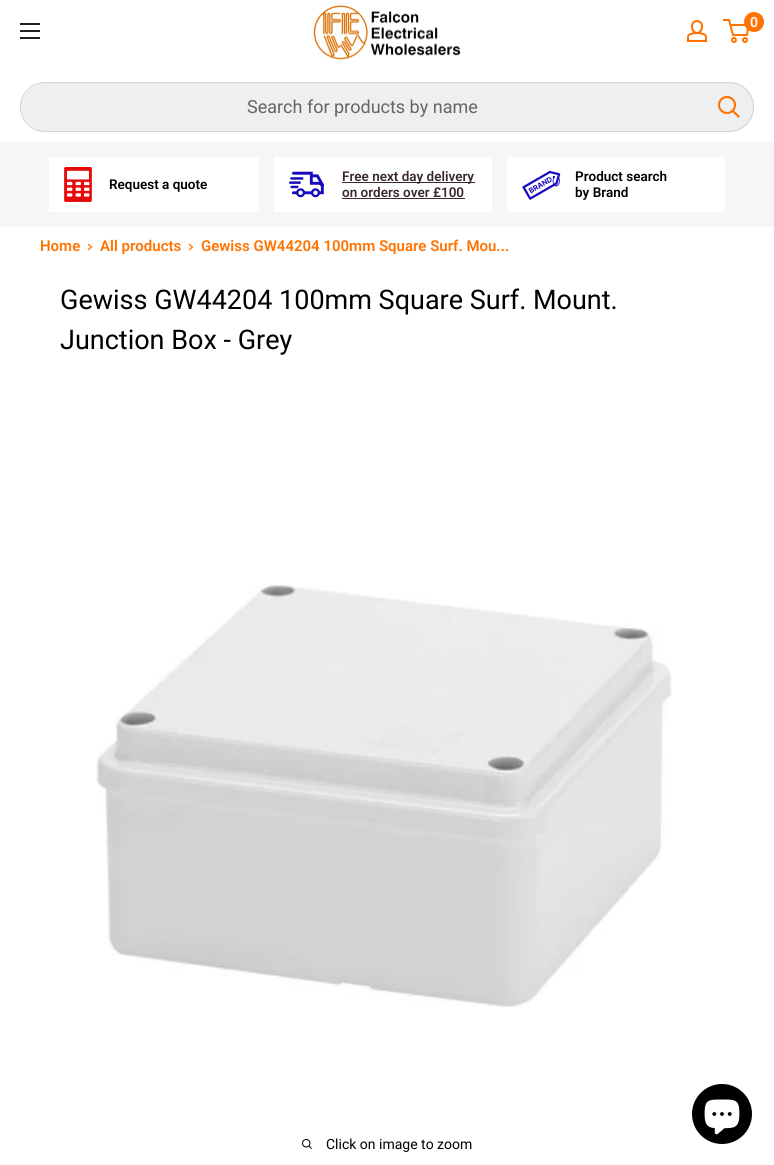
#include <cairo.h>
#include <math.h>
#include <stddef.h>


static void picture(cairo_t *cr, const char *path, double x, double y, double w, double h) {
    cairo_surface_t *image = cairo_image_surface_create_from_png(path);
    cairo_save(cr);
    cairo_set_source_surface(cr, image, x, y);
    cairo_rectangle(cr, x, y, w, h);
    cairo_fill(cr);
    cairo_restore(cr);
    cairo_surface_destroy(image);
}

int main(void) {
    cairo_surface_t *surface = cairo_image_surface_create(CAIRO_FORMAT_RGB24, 774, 1165);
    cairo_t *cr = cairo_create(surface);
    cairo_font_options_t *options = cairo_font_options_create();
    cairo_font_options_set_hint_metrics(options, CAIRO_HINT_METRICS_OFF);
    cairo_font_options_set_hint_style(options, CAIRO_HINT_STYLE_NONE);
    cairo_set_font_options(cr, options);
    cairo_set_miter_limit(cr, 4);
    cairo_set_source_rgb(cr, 1, 1, 1);
    cairo_paint(cr);
    picture(cr, "img1.png", 20, 23, 20, 16);
    picture(cr, "img2.png", 313, 5, 148, 55);
    picture(cr, "img3.png", 687, 20, 20, 22);
    cairo_arc(cr, 734, 40, 2, 0, 2 * M_PI);
    cairo_set_source_rgb(cr, 1, 0.447, 0);
    cairo_stroke(cr);
    cairo_arc(cr, 745, 40, 2, 0, 2 * M_PI);
    cairo_stroke(cr);
    cairo_new_path(cr);
    cairo_move_to(cr, 730.5, 25);
    cairo_line_to(cr, 748.5, 25);
    cairo_line_to(cr, 747, 35);
    cairo_line_to(cr, 733, 35);
    cairo_line_to(cr, 729, 20);
    cairo_line_to(cr, 723, 20);
    cairo_stroke(cr);
    cairo_arc(cr, 754, 22, 10, 0, 2 * M_PI);
    cairo_fill(cr);
    cairo_select_font_face(cr, "Roboto SemiBold", CAIRO_FONT_SLANT_NORMAL, CAIRO_FONT_WEIGHT_NORMAL);
    cairo_set_font_size(cr, 14);
    cairo_set_source_rgb(cr, 1, 1, 1);
    cairo_move_to(cr, 750, 27);
    cairo_show_text(cr, "0");
    cairo_set_source_rgb(cr, 0.937, 0.937, 0.937);
    cairo_new_path(cr);
    cairo_move_to(cr, 45, 82);
    cairo_line_to(cr, 704, 82);
    cairo_line_to(cr, 704, 132);
    cairo_line_to(cr, 45, 132);
    cairo_curve_to(cr, 31, 132, 20, 121, 20, 107);
    cairo_curve_to(cr, 20, 93, 31, 82, 45, 82);
    cairo_close_path(cr);
    cairo_fill(cr);
    cairo_set_source_rgb(cr, 0.835, 0.831, 0.831);
    cairo_set_fill_rule(cr, CAIRO_FILL_RULE_EVEN_ODD);
    cairo_new_path(cr);
    cairo_move_to(cr, 45, 82);
    cairo_line_to(cr, 704, 82);
    cairo_line_to(cr, 704, 132);
    cairo_line_to(cr, 45, 132);
    cairo_curve_to(cr, 31, 132, 20, 121, 20, 107);
    cairo_curve_to(cr, 20, 93, 31, 82, 45, 82);
    cairo_close_path(cr);
    cairo_move_to(cr, 45, 83);
    cairo_line_to(cr, 704, 83);
    cairo_line_to(cr, 704, 131);
    cairo_line_to(cr, 45, 131);
    cairo_curve_to(cr, 13, 131, 13, 83, 45, 83);
    cairo_close_path(cr);
    cairo_fill(cr);
    cairo_select_font_face(cr, "Roboto", CAIRO_FONT_SLANT_NORMAL, CAIRO_FONT_WEIGHT_NORMAL);
    cairo_set_font_size(cr, 18);
    cairo_set_source_rgb(cr, 0.396, 0.396, 0.396);
    cairo_move_to(cr, 247, 113);
    cairo_show_text(cr, "Search for products by name");
    cairo_set_source_rgb(cr, 0.937, 0.937, 0.937);
    cairo_new_path(cr);
    cairo_move_to(cr, 704, 82);
    cairo_line_to(cr, 729, 82);
    cairo_curve_to(cr, 743, 82, 754, 93, 754, 107);
    cairo_curve_to(cr, 754, 121, 743, 132, 729, 132);
    cairo_line_to(cr, 704, 132);
    cairo_close_path(cr);
    cairo_fill(cr);
    cairo_set_source_rgb(cr, 0.835, 0.831, 0.831);
    cairo_new_path(cr);
    cairo_move_to(cr, 704, 82);
    cairo_line_to(cr, 729, 82);
    cairo_curve_to(cr, 743, 82, 754, 93, 754, 107);
    cairo_curve_to(cr, 754, 121, 743, 132, 729, 132);
    cairo_line_to(cr, 704, 132);
    cairo_close_path(cr);
    cairo_move_to(cr, 704, 83);
    cairo_line_to(cr, 729, 83);
    cairo_curve_to(cr, 742, 83, 753, 94, 753, 107);
    cairo_curve_to(cr, 753, 120, 742, 131, 729, 131);
    cairo_line_to(cr, 704, 131);
    cairo_close_path(cr);
    cairo_fill(cr);
    cairo_new_path(cr);
    cairo_move_to(cr, 738.5, 116.5);
    cairo_line_to(cr, 733, 111);
    cairo_set_source_rgb(cr, 1, 0.447, 0);
    cairo_set_line_width(cr, 2.1);
    cairo_set_line_cap(cr, CAIRO_LINE_CAP_SQUARE);
    cairo_stroke(cr);
    cairo_arc(cr, 727, 105, 8, 0, 2 * M_PI);
    cairo_set_line_cap(cr, CAIRO_LINE_CAP_BUTT);
    cairo_stroke(cr);
    cairo_set_source_rgb(cr, 0.961, 0.961, 0.961);
    cairo_rectangle(cr, 0, 142, 774, 85);
    cairo_fill(cr);
    cairo_set_source_rgb(cr, 1, 1, 1);
    cairo_rectangle(cr, 49, 157, 210, 55);
    cairo_fill(cr);
    picture(cr, "img4.png", 64, 167, 28, 35);
    cairo_select_font_face(cr, "Roboto SemiBold", CAIRO_FONT_SLANT_NORMAL, CAIRO_FONT_WEIGHT_NORMAL);
    cairo_set_font_size(cr, 13.5);
    cairo_set_source_rgb(cr, 0, 0, 0);
    cairo_move_to(cr, 109, 189);
    cairo_show_text(cr, "Request a quote");
    cairo_set_source_rgb(cr, 1, 1, 1);
    cairo_rectangle(cr, 274, 157, 218, 55);
    cairo_fill(cr);
    picture(cr, "img5.png", 289, 171, 35, 27);
    cairo_set_source_rgb(cr, 0.227, 0.165, 0.184);
    cairo_rectangle(cr, 342, 182, 133, 1);
    cairo_fill(cr);
    cairo_move_to(cr, 342, 181);
    cairo_show_text(cr, "Free next day delivery");
    cairo_move_to(cr, 342, 197);
    cairo_show_text(cr, "on orders over £100");
    cairo_rectangle(cr, 342, 198, 123, 1);
    cairo_fill(cr);
    cairo_set_source_rgb(cr, 1, 1, 1);
    cairo_rectangle(cr, 507, 157, 218, 55);
    cairo_fill(cr);
    picture(cr, "img6.png", 522, 170, 39, 30);
    cairo_set_source_rgb(cr, 0, 0, 0);
    cairo_move_to(cr, 575, 181);
    cairo_show_text(cr, "Product search");
    cairo_move_to(cr, 575, 197);
    cairo_show_text(cr, "by Brand");
    cairo_set_font_size(cr, 15);
    cairo_set_source_rgb(cr, 1, 0.447, 0);
    cairo_move_to(cr, 40, 251);
    cairo_show_text(cr, "Home");
    cairo_new_path(cr);
    cairo_move_to(cr, 88.5, 244.5);
    cairo_line_to(cr, 91.5, 247);
    cairo_line_to(cr, 88.5, 249.5);
    cairo_set_line_width(cr, 1.3);
    cairo_set_line_cap(cr, CAIRO_LINE_CAP_SQUARE);
    cairo_stroke(cr);
    cairo_move_to(cr, 100, 251);
    cairo_show_text(cr, "All products");
    cairo_new_path(cr);
    cairo_move_to(cr, 189.5, 244.5);
    cairo_line_to(cr, 192.5, 247);
    cairo_line_to(cr, 189.5, 249.5);
    cairo_stroke(cr);
    cairo_move_to(cr, 201, 251);
    cairo_show_text(cr, "Gewiss GW44204 100mm Square Surf. Mou...");
    cairo_select_font_face(cr, "Roboto", CAIRO_FONT_SLANT_NORMAL, CAIRO_FONT_WEIGHT_NORMAL);
    cairo_set_font_size(cr, 27);
    cairo_set_source_rgb(cr, 0, 0, 0);
    cairo_move_to(cr, 60, 309);
    cairo_show_text(cr, "Gewiss GW44204 100mm Square Surf. Mount.");
    cairo_move_to(cr, 60, 349);
    cairo_show_text(cr, "Junction Box - Grey");
    picture(cr, "img7.png", 96, 584, 576, 423);
    picture(cr, "img8.png", 302, 1139, 10, 10);
    cairo_set_font_size(cr, 14);
    cairo_move_to(cr, 326, 1149);
    cairo_show_text(cr, "Click on image to zoom");
    cairo_new_path(cr);
    cairo_arc(cr, 722, 1114, 30, 0, 2 * M_PI);
    cairo_fill(cr);
    picture(cr, "img9.png", 704, 1099, 36, 36);
    cairo_surface_write_to_png(surface, "page.png");
    cairo_font_options_destroy(options);
    cairo_destroy(cr);
    cairo_surface_destroy(surface);
    return 0;
}
